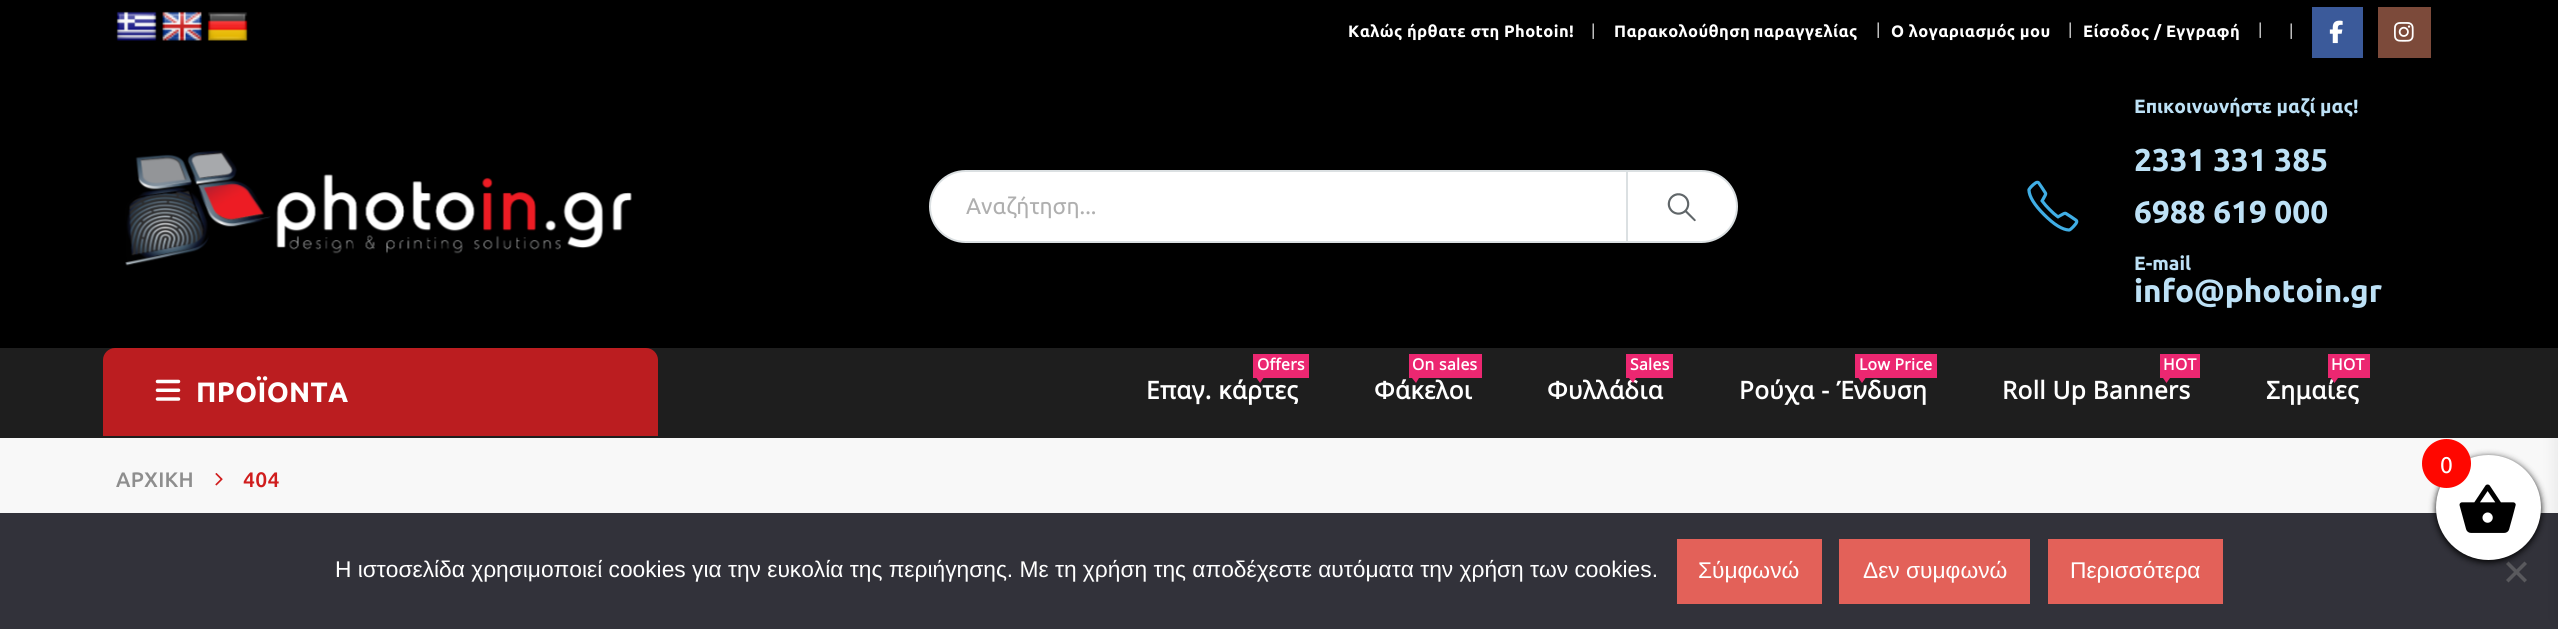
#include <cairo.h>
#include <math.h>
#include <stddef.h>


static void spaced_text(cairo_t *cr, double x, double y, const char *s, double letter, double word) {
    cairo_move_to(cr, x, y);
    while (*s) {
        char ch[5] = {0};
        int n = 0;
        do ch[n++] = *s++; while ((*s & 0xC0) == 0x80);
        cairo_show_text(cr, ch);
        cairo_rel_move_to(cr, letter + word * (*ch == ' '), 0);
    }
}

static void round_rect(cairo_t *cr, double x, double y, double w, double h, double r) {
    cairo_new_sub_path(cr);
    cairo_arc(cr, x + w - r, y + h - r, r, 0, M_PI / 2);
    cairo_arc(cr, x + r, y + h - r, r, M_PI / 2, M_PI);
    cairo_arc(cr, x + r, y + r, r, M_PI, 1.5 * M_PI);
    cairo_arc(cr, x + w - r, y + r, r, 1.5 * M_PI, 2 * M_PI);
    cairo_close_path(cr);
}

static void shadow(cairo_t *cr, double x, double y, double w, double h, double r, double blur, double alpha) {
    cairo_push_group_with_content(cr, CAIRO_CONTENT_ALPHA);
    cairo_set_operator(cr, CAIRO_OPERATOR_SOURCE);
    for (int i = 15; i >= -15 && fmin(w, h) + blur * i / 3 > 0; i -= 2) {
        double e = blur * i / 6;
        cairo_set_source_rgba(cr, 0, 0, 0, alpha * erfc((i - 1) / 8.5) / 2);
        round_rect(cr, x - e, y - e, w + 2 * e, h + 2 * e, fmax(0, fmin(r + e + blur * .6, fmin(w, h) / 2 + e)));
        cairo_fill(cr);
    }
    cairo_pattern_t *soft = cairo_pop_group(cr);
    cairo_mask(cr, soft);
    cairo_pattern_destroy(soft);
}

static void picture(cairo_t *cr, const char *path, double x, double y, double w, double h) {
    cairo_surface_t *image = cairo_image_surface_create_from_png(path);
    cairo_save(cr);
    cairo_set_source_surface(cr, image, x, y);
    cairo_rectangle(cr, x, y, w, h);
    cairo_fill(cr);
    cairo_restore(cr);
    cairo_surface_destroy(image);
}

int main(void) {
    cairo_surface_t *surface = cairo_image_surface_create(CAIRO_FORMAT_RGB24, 2558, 629);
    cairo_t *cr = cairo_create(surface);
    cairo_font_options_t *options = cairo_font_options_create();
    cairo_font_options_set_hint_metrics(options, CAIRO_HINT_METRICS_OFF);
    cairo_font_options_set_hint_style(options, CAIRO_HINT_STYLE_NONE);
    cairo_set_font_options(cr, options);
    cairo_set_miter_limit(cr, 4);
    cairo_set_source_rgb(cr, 0.118, 0.118, 0.118);
    cairo_paint(cr);
    cairo_set_source_rgb(cr, 0, 0, 0);
    cairo_rectangle(cr, 0, 0, 2558, 348);
    cairo_fill(cr);
    picture(cr, "img1.png", 116, 11, 41, 30);
    picture(cr, "img2.png", 162, 11, 40, 30);
    picture(cr, "img3.png", 207, 12, 41, 29);
    cairo_select_font_face(cr, "Ubuntu", CAIRO_FONT_SLANT_NORMAL, CAIRO_FONT_WEIGHT_BOLD);
    cairo_set_font_size(cr, 16.5);
    cairo_set_source_rgb(cr, 1, 1, 1);
    spaced_text(cr, 1348, 37, "Καλώς ήρθατε στη Photoin!", 0.4, 0);
    cairo_select_font_face(cr, "Ubuntu", CAIRO_FONT_SLANT_NORMAL, CAIRO_FONT_WEIGHT_NORMAL);
    cairo_set_font_size(cr, 16);
    cairo_set_source_rgb(cr, 0.8, 0.8, 0.8);
    spaced_text(cr, 1591, 36, "|", 0.3, 0);
    cairo_select_font_face(cr, "Ubuntu", CAIRO_FONT_SLANT_NORMAL, CAIRO_FONT_WEIGHT_BOLD);
    cairo_set_font_size(cr, 16.5);
    cairo_set_source_rgb(cr, 1, 1, 1);
    spaced_text(cr, 1614, 37, "Παρακολούθηση παραγγελίας", 0.4, -1);
    cairo_select_font_face(cr, "Ubuntu", CAIRO_FONT_SLANT_NORMAL, CAIRO_FONT_WEIGHT_NORMAL);
    cairo_set_font_size(cr, 16);
    cairo_set_source_rgb(cr, 0.8, 0.8, 0.8);
    spaced_text(cr, 1876, 35, "|", 0.3, 0);
    cairo_select_font_face(cr, "Ubuntu", CAIRO_FONT_SLANT_NORMAL, CAIRO_FONT_WEIGHT_BOLD);
    cairo_set_font_size(cr, 16.5);
    cairo_set_source_rgb(cr, 1, 1, 1);
    spaced_text(cr, 1891, 37, "Ο λογαριασμός μου", 0.4, 0);
    cairo_select_font_face(cr, "Ubuntu", CAIRO_FONT_SLANT_NORMAL, CAIRO_FONT_WEIGHT_NORMAL);
    cairo_set_font_size(cr, 16);
    cairo_set_source_rgb(cr, 0.8, 0.8, 0.8);
    spaced_text(cr, 2068, 35, "|", 0.3, 0);
    cairo_select_font_face(cr, "Ubuntu", CAIRO_FONT_SLANT_NORMAL, CAIRO_FONT_WEIGHT_BOLD);
    cairo_set_font_size(cr, 16.5);
    cairo_set_source_rgb(cr, 1, 1, 1);
    spaced_text(cr, 2083, 37, "Είσοδος / Εγγραφή", 0.4, 0);
    cairo_select_font_face(cr, "Ubuntu", CAIRO_FONT_SLANT_NORMAL, CAIRO_FONT_WEIGHT_NORMAL);
    cairo_set_font_size(cr, 16);
    cairo_set_source_rgb(cr, 0.8, 0.8, 0.8);
    spaced_text(cr, 2258, 35, "|", 0.3, 0);
    spaced_text(cr, 2289, 36, "|", 0.3, 0);
    cairo_set_source_rgb(cr, 0.231, 0.353, 0.604);
    cairo_rectangle(cr, 2312, 7, 51, 51);
    cairo_fill(cr);
    picture(cr, "img4.png", 2329, 20, 14, 24);
    cairo_set_source_rgb(cr, 0.486, 0.29, 0.227);
    cairo_rectangle(cr, 2378, 7, 53, 51);
    cairo_fill(cr);
    picture(cr, "img5.png", 2394, 22, 20, 20);
    picture(cr, "img6.png", 125, 150, 507, 116);
    cairo_set_source_rgb(cr, 1, 1, 1);
    round_rect(cr, 930, 171, 807, 71, 35.5);
    cairo_fill_preserve(cr);
    cairo_set_source_rgb(cr, 0.859, 0.878, 0.886);
    cairo_stroke(cr);
    cairo_rectangle(cr, 1626, 172, 2, 70);
    cairo_fill(cr);
    cairo_set_font_size(cr, 22.75);
    cairo_set_source_rgb(cr, 0.686, 0.686, 0.686);
    cairo_move_to(cr, 966, 214);
    cairo_show_text(cr, "Αναζήτηση...");
    picture(cr, "img7.png", 1667, 193, 29, 29);
    picture(cr, "img8.png", 2027, 180, 52, 52);
    cairo_select_font_face(cr, "Ubuntu", CAIRO_FONT_SLANT_NORMAL, CAIRO_FONT_WEIGHT_BOLD);
    cairo_set_font_size(cr, 19.25);
    cairo_set_source_rgb(cr, 0.741, 0.882, 0.961);
    cairo_move_to(cr, 2134, 113);
    cairo_show_text(cr, "Επικοινωνήστε μαζί μας!");
    cairo_set_font_size(cr, 31.5);
    cairo_move_to(cr, 2134, 171);
    cairo_show_text(cr, "2331 331 385");
    cairo_move_to(cr, 2134, 223);
    cairo_show_text(cr, "6988 619 000");
    cairo_set_font_size(cr, 19.25);
    cairo_move_to(cr, 2134, 270);
    cairo_show_text(cr, "E-mail");
    cairo_set_font_size(cr, 31.5);
    cairo_move_to(cr, 2134, 302);
    cairo_show_text(cr, "info@photoin.gr");
    cairo_set_source_rgb(cr, 0.733, 0.114, 0.125);
    cairo_new_path(cr);
    cairo_move_to(cr, 115, 348);
    cairo_line_to(cr, 646, 348);
    cairo_curve_to(cr, 652.5, 348, 658, 353.5, 658, 360);
    cairo_line_to(cr, 658, 436);
    cairo_line_to(cr, 103, 436);
    cairo_line_to(cr, 103, 360);
    cairo_curve_to(cr, 103, 353.5, 108.5, 348, 115, 348);
    cairo_close_path(cr);
    cairo_fill(cr);
    picture(cr, "img9.png", 155, 379, 26, 22);
    cairo_set_font_size(cr, 28);
    cairo_set_source_rgb(cr, 1, 1, 1);
    spaced_text(cr, 196, 402, "ΠΡΟΪΟΝΤΑ", 0.3, 0);
    cairo_set_source_rgb(cr, 0.922, 0.153, 0.443);
    cairo_rectangle(cr, 1253, 354, 56, 24);
    cairo_fill(cr);
    cairo_select_font_face(cr, "Noto Sans", CAIRO_FONT_SLANT_NORMAL, CAIRO_FONT_WEIGHT_BOLD);
    cairo_set_font_size(cr, 15.75);
    cairo_set_source_rgb(cr, 1, 1, 1);
    spaced_text(cr, 1257, 370, "Offers", 0.3, 0);
    cairo_set_font_size(cr, 24.5);
    spaced_text(cr, 1146, 399, "Επαγ. κάρτες", 0.3, 0);
    cairo_set_source_rgb(cr, 0.922, 0.153, 0.443);
    cairo_new_path(cr);
    cairo_move_to(cr, 1256.5, 378);
    cairo_line_to(cr, 1263.5, 378);
    cairo_line_to(cr, 1260, 383);
    cairo_close_path(cr);
    cairo_fill(cr);
    cairo_rectangle(cr, 1409, 354, 73, 24);
    cairo_fill(cr);
    cairo_set_font_size(cr, 15.75);
    cairo_set_source_rgb(cr, 1, 1, 1);
    spaced_text(cr, 1412, 370, "On sales", 0.3, 0);
    cairo_set_font_size(cr, 24.5);
    spaced_text(cr, 1374, 399, "Φάκελοι", 0.3, 0);
    cairo_set_source_rgb(cr, 0.922, 0.153, 0.443);
    cairo_new_path(cr);
    cairo_move_to(cr, 1412, 378);
    cairo_line_to(cr, 1419, 378);
    cairo_line_to(cr, 1416, 383);
    cairo_close_path(cr);
    cairo_fill(cr);
    cairo_rectangle(cr, 1626, 354, 47, 24);
    cairo_fill(cr);
    cairo_set_font_size(cr, 15.75);
    cairo_set_source_rgb(cr, 1, 1, 1);
    spaced_text(cr, 1630, 370, "Sales", 0.3, 0);
    cairo_set_font_size(cr, 24.5);
    spaced_text(cr, 1547, 399, "Φυλλάδια", 0.3, 0);
    cairo_set_source_rgb(cr, 0.922, 0.153, 0.443);
    cairo_new_path(cr);
    cairo_move_to(cr, 1629, 378);
    cairo_line_to(cr, 1636, 378);
    cairo_line_to(cr, 1633, 383);
    cairo_close_path(cr);
    cairo_fill(cr);
    cairo_rectangle(cr, 1855, 354, 82, 24);
    cairo_fill(cr);
    cairo_set_font_size(cr, 15.75);
    cairo_set_source_rgb(cr, 1, 1, 1);
    spaced_text(cr, 1859, 370, "Low Price", 0.3, 0);
    cairo_set_font_size(cr, 24.5);
    spaced_text(cr, 1739, 399, "Ρούχα - Ένδυση", 0.3, 0);
    cairo_set_source_rgb(cr, 0.922, 0.153, 0.443);
    cairo_new_path(cr);
    cairo_move_to(cr, 1858.5, 378);
    cairo_line_to(cr, 1865.5, 378);
    cairo_line_to(cr, 1862, 383);
    cairo_close_path(cr);
    cairo_fill(cr);
    cairo_rectangle(cr, 2160, 354, 40, 24);
    cairo_fill(cr);
    cairo_set_font_size(cr, 15.75);
    cairo_set_source_rgb(cr, 1, 1, 1);
    spaced_text(cr, 2163, 370, "ΗΟΤ", 0.3, 0);
    cairo_set_font_size(cr, 24.5);
    spaced_text(cr, 2002, 399, "Roll Up Banners", 0.3, 0);
    cairo_set_source_rgb(cr, 0.922, 0.153, 0.443);
    cairo_new_path(cr);
    cairo_move_to(cr, 2163, 378);
    cairo_line_to(cr, 2170, 378);
    cairo_line_to(cr, 2166.5, 383);
    cairo_close_path(cr);
    cairo_fill(cr);
    cairo_rectangle(cr, 2328, 354, 42, 24);
    cairo_fill(cr);
    cairo_set_font_size(cr, 15.75);
    cairo_set_source_rgb(cr, 1, 1, 1);
    spaced_text(cr, 2331, 370, "ΗΟΤ", 0.3, 0);
    cairo_set_font_size(cr, 24.5);
    spaced_text(cr, 2266, 399, "Σημαίες", 0.3, 0);
    cairo_set_source_rgb(cr, 0.922, 0.153, 0.443);
    cairo_new_path(cr);
    cairo_move_to(cr, 2331, 378);
    cairo_line_to(cr, 2338, 378);
    cairo_line_to(cr, 2334.5, 383);
    cairo_close_path(cr);
    cairo_fill(cr);
    cairo_set_source_rgb(cr, 0.969, 0.969, 0.969);
    cairo_rectangle(cr, 0, 438, 2558, 75);
    cairo_fill(cr);
    cairo_select_font_face(cr, "Ubuntu Medium", CAIRO_FONT_SLANT_NORMAL, CAIRO_FONT_WEIGHT_NORMAL);
    cairo_set_font_size(cr, 21);
    cairo_set_source_rgb(cr, 0.557, 0.557, 0.557);
    spaced_text(cr, 116, 487, "ΑΡΧΙΚΗ", 0.3, 0);
    picture(cr, "img10.png", 215, 473, 8, 13);
    cairo_set_source_rgb(cr, 0.816, 0.114, 0.114);
    spaced_text(cr, 243, 487, "404", 0.3, 0);
    cairo_set_source_rgb(cr, 0.196, 0.196, 0.227);
    cairo_rectangle(cr, 0, 513, 2558, 116);
    cairo_fill(cr);
    cairo_set_source_rgb(cr, 0.349, 0.349, 0.365);
    cairo_new_path(cr);
    cairo_move_to(cr, 2524.5, 561.5);
    cairo_line_to(cr, 2527, 564);
    cairo_line_to(cr, 2508.5, 582.5);
    cairo_line_to(cr, 2506, 580);
    cairo_close_path(cr);
    cairo_fill(cr);
    cairo_new_path(cr);
    cairo_move_to(cr, 2506, 564);
    cairo_line_to(cr, 2508.5, 561.5);
    cairo_line_to(cr, 2527, 580);
    cairo_line_to(cr, 2524.5, 582.5);
    cairo_close_path(cr);
    cairo_fill(cr);
    cairo_set_source_rgb(cr, 0, 0, 0);
    shadow(cr, 2436, 457, 105, 105, 52.5, 3.5, 1);
    shadow(cr, 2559, 373, 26, 248, 0, 9, 0.1);
    cairo_set_source_rgb(cr, 1, 1, 1);
    cairo_arc(cr, 2488.5, 507.5, 52.5, 0, 2 * M_PI);
    cairo_fill(cr);
    picture(cr, "img11.png", 2459, 484, 57, 49);
    cairo_set_source_rgb(cr, 1, 0.031, 0);
    cairo_arc(cr, 2446.5, 463.5, 24.5, 0, 2 * M_PI);
    cairo_fill(cr);
    cairo_select_font_face(cr, "Ubuntu", CAIRO_FONT_SLANT_NORMAL, CAIRO_FONT_WEIGHT_NORMAL);
    cairo_set_font_size(cr, 22.75);
    cairo_set_source_rgb(cr, 1, 1, 1);
    spaced_text(cr, 2440, 473, "0", 0.3, 0);
    cairo_select_font_face(cr, "Liberation Sans", CAIRO_FONT_SLANT_NORMAL, CAIRO_FONT_WEIGHT_NORMAL);
    cairo_move_to(cr, 335, 577);
    cairo_show_text(cr, "Η ιστοσελίδα χρησιμοποιεί cookies για την ευκολία της περιήγησης. Με τη χρήση της αποδέχεστε αυτόματα την χρήση των cookies.");
    cairo_set_source_rgb(cr, 0.89, 0.38, 0.349);
    cairo_rectangle(cr, 1677, 539, 145, 65);
    cairo_fill(cr);
    cairo_set_source_rgb(cr, 1, 1, 1);
    cairo_move_to(cr, 1698, 578);
    cairo_show_text(cr, "Σύμφωνώ");
    cairo_set_source_rgb(cr, 0.89, 0.38, 0.349);
    cairo_rectangle(cr, 1839, 539, 191, 65);
    cairo_fill(cr);
    cairo_set_source_rgb(cr, 1, 1, 1);
    cairo_move_to(cr, 1863, 578);
    cairo_show_text(cr, "Δεν συμφωνώ");
    cairo_set_source_rgb(cr, 0.89, 0.38, 0.349);
    cairo_rectangle(cr, 2048, 539, 175, 65);
    cairo_fill(cr);
    cairo_set_source_rgb(cr, 1, 1, 1);
    cairo_move_to(cr, 2070, 578);
    cairo_show_text(cr, "Περισσότερα");
    cairo_surface_write_to_png(surface, "page.png");
    cairo_font_options_destroy(options);
    cairo_destroy(cr);
    cairo_surface_destroy(surface);
    return 0;
}
